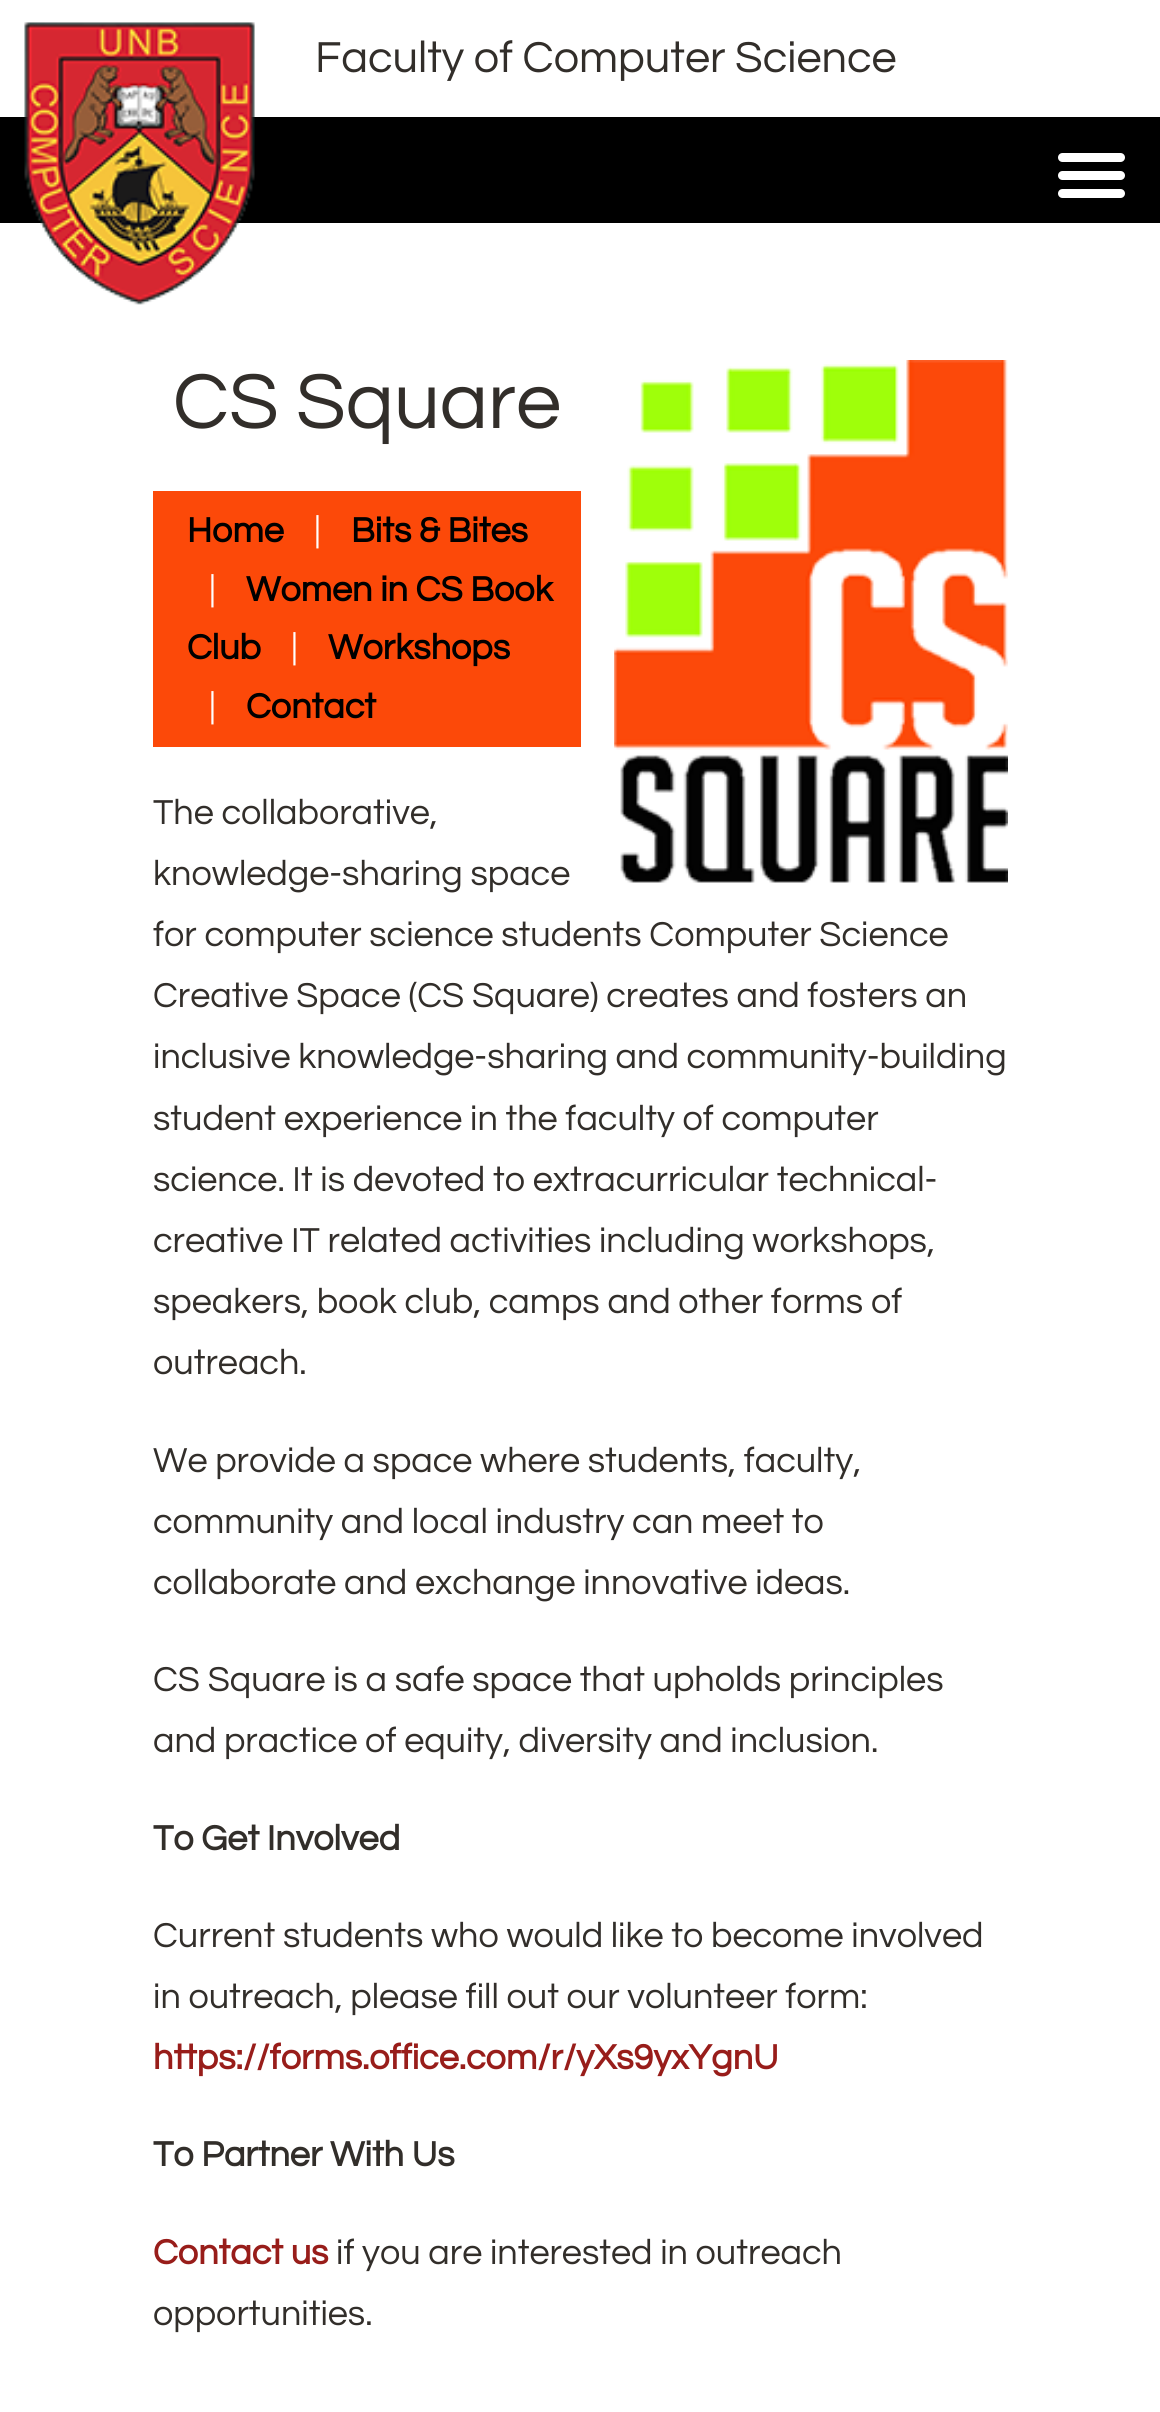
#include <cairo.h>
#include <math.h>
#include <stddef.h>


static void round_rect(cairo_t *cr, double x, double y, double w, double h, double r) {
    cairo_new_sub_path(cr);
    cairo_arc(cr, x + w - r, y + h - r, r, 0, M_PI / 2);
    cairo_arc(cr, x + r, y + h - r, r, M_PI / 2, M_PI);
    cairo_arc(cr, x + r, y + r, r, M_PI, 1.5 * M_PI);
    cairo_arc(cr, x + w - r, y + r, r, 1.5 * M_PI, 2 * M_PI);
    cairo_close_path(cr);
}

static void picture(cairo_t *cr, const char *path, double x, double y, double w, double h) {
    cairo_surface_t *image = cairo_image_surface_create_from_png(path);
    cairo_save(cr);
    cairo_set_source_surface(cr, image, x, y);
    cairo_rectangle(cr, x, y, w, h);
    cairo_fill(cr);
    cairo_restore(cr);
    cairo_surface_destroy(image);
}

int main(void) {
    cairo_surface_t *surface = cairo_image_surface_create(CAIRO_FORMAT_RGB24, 1160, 2412);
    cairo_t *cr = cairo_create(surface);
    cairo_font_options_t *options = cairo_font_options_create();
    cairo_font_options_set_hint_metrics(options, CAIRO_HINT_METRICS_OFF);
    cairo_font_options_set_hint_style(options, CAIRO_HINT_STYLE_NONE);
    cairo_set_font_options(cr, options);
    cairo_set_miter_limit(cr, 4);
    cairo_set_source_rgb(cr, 1, 1, 1);
    cairo_paint(cr);
    cairo_set_source_rgb(cr, 0, 0, 0);
    cairo_rectangle(cr, 0, 117, 1160, 106);
    cairo_fill(cr);
    picture(cr, "img1.png", 24, 22, 231, 283);
    cairo_select_font_face(cr, "Questrial", CAIRO_FONT_SLANT_NORMAL, CAIRO_FONT_WEIGHT_NORMAL);
    cairo_set_font_size(cr, 45);
    cairo_set_source_rgb(cr, 0.196, 0.18, 0.165);
    cairo_move_to(cr, 315, 72);
    cairo_show_text(cr, "Faculty of Computer Science");
    cairo_set_source_rgb(cr, 1, 1, 1);
    round_rect(cr, 1058, 171, 67, 9, 4.5);
    cairo_fill(cr);
    round_rect(cr, 1058, 153, 67, 9, 4.5);
    cairo_fill(cr);
    round_rect(cr, 1058, 189, 67, 9, 4.5);
    cairo_fill(cr);
    cairo_set_font_size(cr, 81);
    cairo_set_source_rgb(cr, 0.196, 0.18, 0.165);
    cairo_move_to(cr, 173, 428);
    cairo_show_text(cr, "CS Square");
    picture(cr, "img2.png", 614, 360, 394, 523);
    cairo_set_source_rgb(cr, 0.988, 0.286, 0.039);
    cairo_rectangle(cr, 153, 491, 428, 256);
    cairo_fill(cr);
    cairo_select_font_face(cr, "Questrial", CAIRO_FONT_SLANT_NORMAL, CAIRO_FONT_WEIGHT_BOLD);
    cairo_set_font_size(cr, 36);
    cairo_set_source_rgb(cr, 0, 0, 0);
    cairo_move_to(cr, 187, 542);
    cairo_show_text(cr, "Home");
    cairo_select_font_face(cr, "Questrial", CAIRO_FONT_SLANT_NORMAL, CAIRO_FONT_WEIGHT_NORMAL);
    cairo_set_source_rgb(cr, 1, 1, 1);
    cairo_move_to(cr, 314, 542);
    cairo_show_text(cr, "|");
    cairo_select_font_face(cr, "Questrial", CAIRO_FONT_SLANT_NORMAL, CAIRO_FONT_WEIGHT_BOLD);
    cairo_set_source_rgb(cr, 0, 0, 0);
    cairo_move_to(cr, 351, 542);
    cairo_show_text(cr, "Bits & Bites");
    cairo_select_font_face(cr, "Questrial", CAIRO_FONT_SLANT_NORMAL, CAIRO_FONT_WEIGHT_NORMAL);
    cairo_set_source_rgb(cr, 1, 1, 1);
    cairo_move_to(cr, 209, 601);
    cairo_show_text(cr, "|");
    cairo_select_font_face(cr, "Questrial", CAIRO_FONT_SLANT_NORMAL, CAIRO_FONT_WEIGHT_BOLD);
    cairo_set_source_rgb(cr, 0, 0, 0);
    cairo_move_to(cr, 246, 601);
    cairo_show_text(cr, "Women in CS Book");
    cairo_move_to(cr, 187, 659);
    cairo_show_text(cr, "Club");
    cairo_select_font_face(cr, "Questrial", CAIRO_FONT_SLANT_NORMAL, CAIRO_FONT_WEIGHT_NORMAL);
    cairo_set_source_rgb(cr, 1, 1, 1);
    cairo_move_to(cr, 291, 659);
    cairo_show_text(cr, "|");
    cairo_select_font_face(cr, "Questrial", CAIRO_FONT_SLANT_NORMAL, CAIRO_FONT_WEIGHT_BOLD);
    cairo_set_source_rgb(cr, 0, 0, 0);
    cairo_move_to(cr, 328, 659);
    cairo_show_text(cr, "Workshops");
    cairo_select_font_face(cr, "Questrial", CAIRO_FONT_SLANT_NORMAL, CAIRO_FONT_WEIGHT_NORMAL);
    cairo_set_source_rgb(cr, 1, 1, 1);
    cairo_move_to(cr, 209, 718);
    cairo_show_text(cr, "|");
    cairo_select_font_face(cr, "Questrial", CAIRO_FONT_SLANT_NORMAL, CAIRO_FONT_WEIGHT_BOLD);
    cairo_set_source_rgb(cr, 0, 0, 0);
    cairo_move_to(cr, 246, 718);
    cairo_show_text(cr, "Contact");
    cairo_select_font_face(cr, "Questrial", CAIRO_FONT_SLANT_NORMAL, CAIRO_FONT_WEIGHT_NORMAL);
    cairo_set_source_rgb(cr, 0.196, 0.18, 0.165);
    cairo_move_to(cr, 153, 824);
    cairo_show_text(cr, "The collaborative,");
    cairo_move_to(cr, 153, 885);
    cairo_show_text(cr, "knowledge-sharing space");
    cairo_move_to(cr, 153, 946);
    cairo_show_text(cr, "for computer science students Computer Science");
    cairo_move_to(cr, 153, 1007);
    cairo_show_text(cr, "Creative Space (CS Square) creates and fosters an");
    cairo_move_to(cr, 153, 1068);
    cairo_show_text(cr, "inclusive knowledge-sharing and community-building");
    cairo_move_to(cr, 153, 1130);
    cairo_show_text(cr, "student experience in the faculty of computer");
    cairo_move_to(cr, 153, 1191);
    cairo_show_text(cr, "science. It is devoted to extracurricular technical-");
    cairo_move_to(cr, 153, 1252);
    cairo_show_text(cr, "creative IT related activities including workshops,");
    cairo_move_to(cr, 153, 1313);
    cairo_show_text(cr, "speakers, book club, camps and other forms of");
    cairo_move_to(cr, 153, 1374);
    cairo_show_text(cr, "outreach.");
    cairo_move_to(cr, 153, 1472);
    cairo_show_text(cr, "We provide a space where students, faculty,");
    cairo_move_to(cr, 153, 1533);
    cairo_show_text(cr, "community and local industry can meet to");
    cairo_move_to(cr, 153, 1594);
    cairo_show_text(cr, "collaborate and exchange innovative ideas.");
    cairo_move_to(cr, 153, 1691);
    cairo_show_text(cr, "CS Square is a safe space that upholds principles");
    cairo_move_to(cr, 153, 1752);
    cairo_show_text(cr, "and practice of equity, diversity and inclusion.");
    cairo_select_font_face(cr, "Questrial", CAIRO_FONT_SLANT_NORMAL, CAIRO_FONT_WEIGHT_BOLD);
    cairo_move_to(cr, 153, 1850);
    cairo_show_text(cr, "To Get Involved");
    cairo_select_font_face(cr, "Questrial", CAIRO_FONT_SLANT_NORMAL, CAIRO_FONT_WEIGHT_NORMAL);
    cairo_move_to(cr, 153, 1947);
    cairo_show_text(cr, "Current students who would like to become involved");
    cairo_move_to(cr, 153, 2008);
    cairo_show_text(cr, "in outreach, please fill out our volunteer form:");
    cairo_select_font_face(cr, "Questrial", CAIRO_FONT_SLANT_NORMAL, CAIRO_FONT_WEIGHT_BOLD);
    cairo_set_source_rgb(cr, 0.596, 0.114, 0.102);
    cairo_move_to(cr, 153, 2069);
    cairo_show_text(cr, "https://forms.office.com/r/yXs9yxYgnU");
    cairo_set_source_rgb(cr, 0.196, 0.18, 0.165);
    cairo_move_to(cr, 153, 2166);
    cairo_show_text(cr, "To Partner With Us");
    cairo_set_source_rgb(cr, 0.596, 0.114, 0.102);
    cairo_move_to(cr, 153, 2264);
    cairo_show_text(cr, "Contact us");
    cairo_select_font_face(cr, "Questrial", CAIRO_FONT_SLANT_NORMAL, CAIRO_FONT_WEIGHT_NORMAL);
    cairo_set_source_rgb(cr, 0.196, 0.18, 0.165);
    cairo_move_to(cr, 336, 2264);
    cairo_show_text(cr, "if you are interested in outreach");
    cairo_move_to(cr, 153, 2325);
    cairo_show_text(cr, "opportunities.");
    cairo_surface_write_to_png(surface, "page.png");
    cairo_font_options_destroy(options);
    cairo_destroy(cr);
    cairo_surface_destroy(surface);
    return 0;
}
